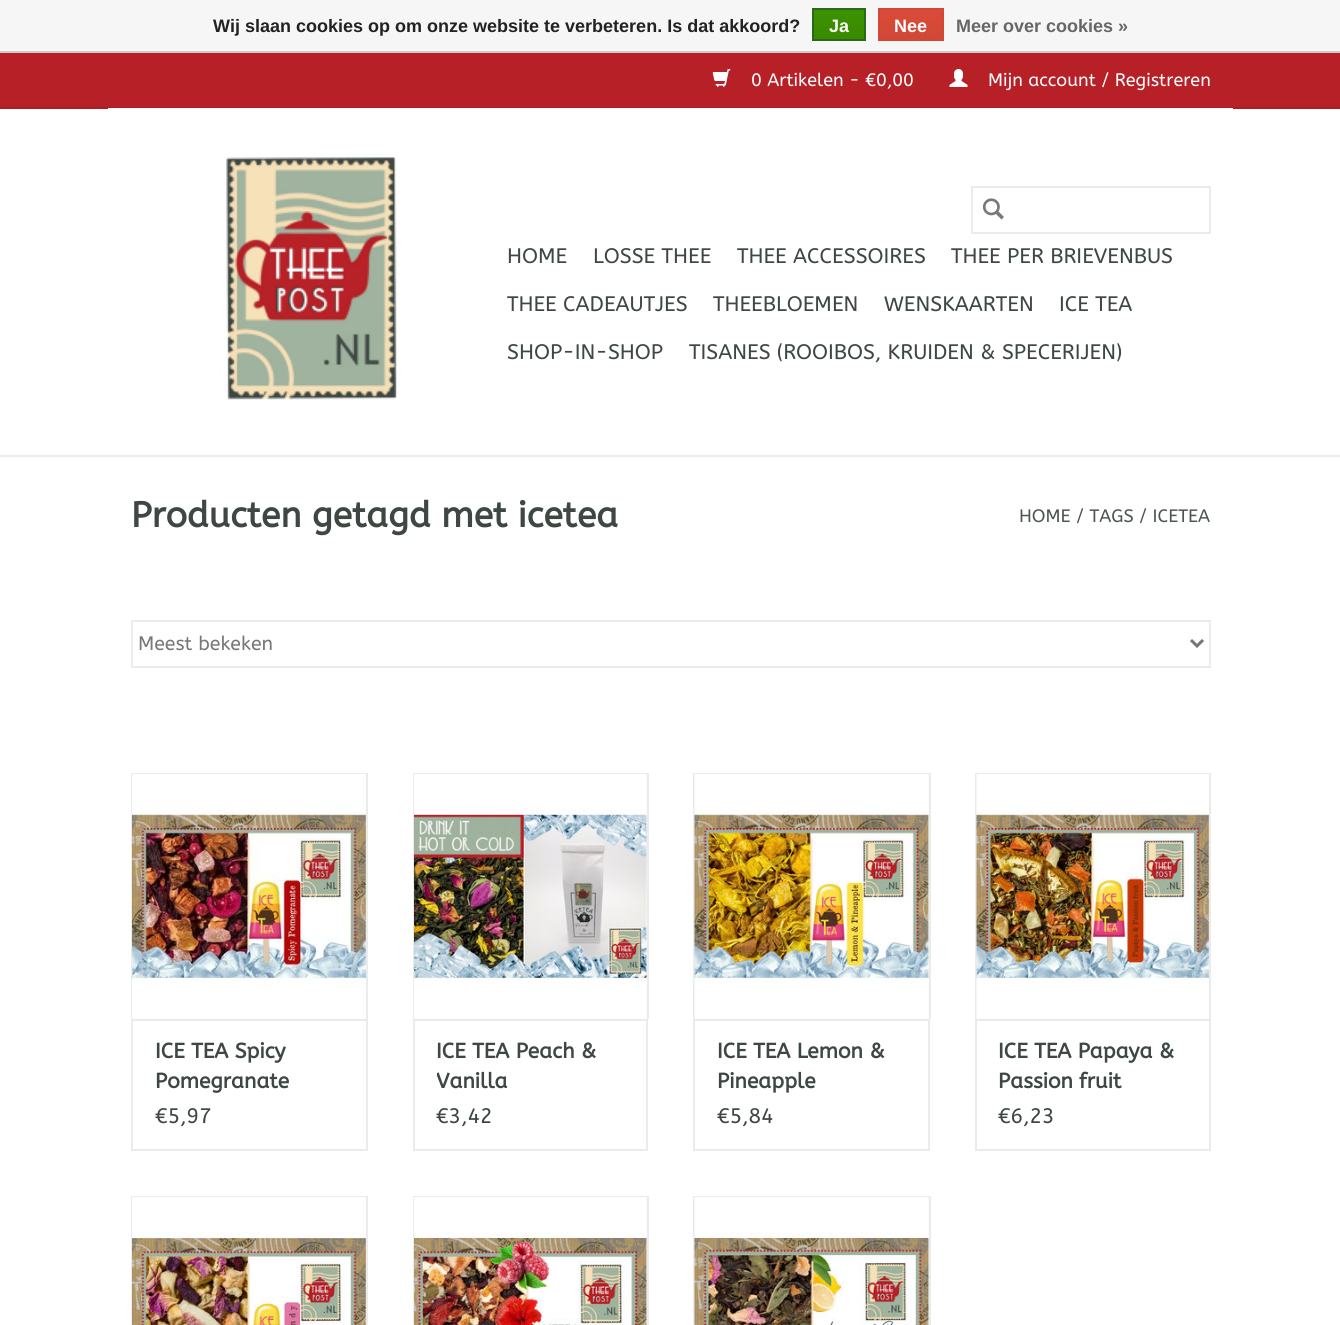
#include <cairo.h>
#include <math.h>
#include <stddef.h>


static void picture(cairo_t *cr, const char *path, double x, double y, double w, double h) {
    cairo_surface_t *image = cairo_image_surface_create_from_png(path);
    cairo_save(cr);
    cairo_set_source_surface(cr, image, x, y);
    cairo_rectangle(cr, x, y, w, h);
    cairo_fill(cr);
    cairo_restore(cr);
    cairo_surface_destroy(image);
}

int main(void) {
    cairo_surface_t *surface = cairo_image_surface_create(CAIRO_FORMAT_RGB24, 1340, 1325);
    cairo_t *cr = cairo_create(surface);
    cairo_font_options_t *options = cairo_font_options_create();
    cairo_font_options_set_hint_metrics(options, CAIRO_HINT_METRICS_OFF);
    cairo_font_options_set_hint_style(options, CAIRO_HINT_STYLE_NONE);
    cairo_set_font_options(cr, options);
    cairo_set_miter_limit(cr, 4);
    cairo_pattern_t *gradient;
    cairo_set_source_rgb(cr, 1, 1, 1);
    cairo_paint(cr);
    cairo_set_source_rgb(cr, 0.961, 0.961, 0.961);
    cairo_rectangle(cr, 0, 0, 1340, 51);
    cairo_fill(cr);
    cairo_set_source_rgb(cr, 0.8, 0.8, 0.8);
    cairo_rectangle(cr, 0, 51, 1340, 2);
    cairo_fill(cr);
    cairo_select_font_face(cr, "Liberation Sans", CAIRO_FONT_SLANT_NORMAL, CAIRO_FONT_WEIGHT_BOLD);
    cairo_set_font_size(cr, 18);
    cairo_set_source_rgb(cr, 0.133, 0.133, 0.133);
    cairo_move_to(cr, 213, 32);
    cairo_show_text(cr, "Wij slaan cookies op om onze website te verbeteren. Is dat akkoord?");
    gradient = cairo_pattern_create_linear(839, 9, 839, 39);
    cairo_pattern_add_color_stop_rgba(gradient, 0, 0.235, 0.576, 0, 1);
    cairo_pattern_add_color_stop_rgba(gradient, 1, 0.224, 0.541, 0, 1);
    cairo_set_source(cr, gradient);
    cairo_pattern_destroy(gradient);
    cairo_rectangle(cr, 814, 10, 50, 29);
    cairo_fill(cr);
    cairo_rectangle(cr, 813, 9, 52, 31);
    cairo_set_source_rgb(cr, 0.161, 0.412, 0.114);
    cairo_stroke(cr);
    cairo_set_source_rgb(cr, 1, 1, 1);
    cairo_move_to(cr, 829, 32);
    cairo_show_text(cr, "Ja");
    gradient = cairo_pattern_create_linear(911, 9, 911, 39);
    cairo_pattern_add_color_stop_rgba(gradient, 0, 0.863, 0.29, 0.22, 1);
    cairo_pattern_add_color_stop_rgba(gradient, 1, 0.82, 0.282, 0.212, 1);
    cairo_set_source(cr, gradient);
    cairo_pattern_destroy(gradient);
    cairo_rectangle(cr, 880, 10, 62, 29);
    cairo_fill(cr);
    cairo_rectangle(cr, 879, 9, 64, 31);
    cairo_set_source_rgb(cr, 0.82, 0.282, 0.212);
    cairo_stroke(cr);
    cairo_set_source_rgb(cr, 1, 1, 1);
    cairo_move_to(cr, 894, 32);
    cairo_show_text(cr, "Nee");
    cairo_set_source_rgb(cr, 0.4, 0.4, 0.4);
    cairo_move_to(cr, 956, 32);
    cairo_show_text(cr, "Meer over cookies »");
    cairo_set_source_rgb(cr, 0.918, 0.918, 0.918);
    cairo_rectangle(cr, 0, 455, 1340, 2);
    cairo_fill(cr);
    cairo_set_source_rgb(cr, 0.718, 0.125, 0.153);
    cairo_rectangle(cr, 0, 53, 1340, 54);
    cairo_fill(cr);
    cairo_set_source_rgb(cr, 0.667, 0.114, 0.141);
    cairo_rectangle(cr, 0, 107, 1340, 2);
    cairo_fill(cr);
    picture(cr, "img1.png", 712, 69, 19, 18);
    cairo_select_font_face(cr, "ABeeZee", CAIRO_FONT_SLANT_NORMAL, CAIRO_FONT_WEIGHT_NORMAL);
    cairo_set_source_rgb(cr, 1, 1, 1);
    cairo_move_to(cr, 751, 86);
    cairo_show_text(cr, "0 Artikelen - €0,00");
    picture(cr, "img2.png", 949, 69, 19, 18);
    cairo_move_to(cr, 988, 86);
    cairo_show_text(cr, "Mijn account / Registreren");
    cairo_rectangle(cr, 108, 108, 1125, 1);
    cairo_fill(cr);
    picture(cr, "img3.png", 219, 157, 178, 243);
    cairo_rectangle(cr, 972, 187, 238, 46);
    cairo_set_source_rgb(cr, 0.918, 0.918, 0.918);
    cairo_stroke(cr);
    picture(cr, "img4.png", 982, 198, 22, 22);
    cairo_set_font_size(cr, 21);
    cairo_set_source_rgb(cr, 0.243, 0.278, 0.259);
    cairo_move_to(cr, 507, 263);
    cairo_show_text(cr, "HOME");
    cairo_move_to(cr, 593, 263);
    cairo_show_text(cr, "LOSSE THEE");
    cairo_move_to(cr, 737, 263);
    cairo_show_text(cr, "THEE ACCESSOIRES");
    cairo_move_to(cr, 951, 263);
    cairo_show_text(cr, "THEE PER BRIEVENBUS");
    cairo_move_to(cr, 507, 311);
    cairo_show_text(cr, "THEE CADEAUTJES");
    cairo_move_to(cr, 713, 311);
    cairo_show_text(cr, "THEEBLOEMEN");
    cairo_move_to(cr, 884, 311);
    cairo_show_text(cr, "WENSKAARTEN");
    cairo_move_to(cr, 1059, 311);
    cairo_show_text(cr, "ICE TEA");
    cairo_move_to(cr, 507, 359);
    cairo_show_text(cr, "SHOP-IN-SHOP");
    cairo_move_to(cr, 689, 359);
    cairo_show_text(cr, "TISANES (ROOIBOS, KRUIDEN & SPECERIJEN)");
    cairo_select_font_face(cr, "ABeeZee", CAIRO_FONT_SLANT_NORMAL, CAIRO_FONT_WEIGHT_BOLD);
    cairo_set_font_size(cr, 35.5);
    cairo_move_to(cr, 131, 527);
    cairo_show_text(cr, "Producten getagd met icetea");
    cairo_select_font_face(cr, "ABeeZee", CAIRO_FONT_SLANT_NORMAL, CAIRO_FONT_WEIGHT_NORMAL);
    cairo_set_font_size(cr, 18);
    cairo_set_source_rgb(cr, 0.302, 0.333, 0.318);
    cairo_move_to(cr, 1019, 522);
    cairo_show_text(cr, "HOME / TAGS / ICETEA");
    cairo_rectangle(cr, 132, 621, 1078, 46);
    cairo_set_source_rgb(cr, 0.918, 0.918, 0.918);
    cairo_stroke(cr);
    cairo_new_path(cr);
    cairo_move_to(cr, 1191, 640);
    cairo_line_to(cr, 1197, 646);
    cairo_line_to(cr, 1203, 640);
    cairo_set_source_rgb(cr, 0.467, 0.467, 0.467);
    cairo_set_line_width(cr, 3);
    cairo_stroke(cr);
    cairo_set_font_size(cr, 19.5);
    cairo_move_to(cr, 138, 650);
    cairo_show_text(cr, "Meest bekeken");
    cairo_set_source_rgb(cr, 0.969, 0.969, 0.969);
    cairo_rectangle(cr, 133, 1018, 233, 1);
    cairo_fill(cr);
    cairo_set_source_rgb(cr, 0.918, 0.918, 0.918);
    cairo_rectangle(cr, 131, 773, 237, 1);
    cairo_fill(cr);
    cairo_rectangle(cr, 366, 773, 2, 246);
    cairo_fill(cr);
    cairo_rectangle(cr, 131, 773, 2, 246);
    cairo_fill(cr);
    picture(cr, "img5.png", 132, 774, 234, 245);
    cairo_rectangle(cr, 132, 1020, 235, 130);
    cairo_set_line_width(cr, 2);
    cairo_stroke(cr);
    cairo_select_font_face(cr, "ABeeZee", CAIRO_FONT_SLANT_NORMAL, CAIRO_FONT_WEIGHT_BOLD);
    cairo_set_font_size(cr, 21);
    cairo_set_source_rgb(cr, 0.243, 0.278, 0.259);
    cairo_move_to(cr, 155, 1058);
    cairo_show_text(cr, "ICE TEA Spicy");
    cairo_move_to(cr, 155, 1088);
    cairo_show_text(cr, "Pomegranate");
    cairo_select_font_face(cr, "ABeeZee", CAIRO_FONT_SLANT_NORMAL, CAIRO_FONT_WEIGHT_NORMAL);
    cairo_move_to(cr, 155, 1123);
    cairo_show_text(cr, "€5,97");
    cairo_set_source_rgb(cr, 0.969, 0.969, 0.969);
    cairo_rectangle(cr, 415, 775, 232, 244);
    cairo_fill(cr);
    cairo_set_source_rgb(cr, 0.918, 0.918, 0.918);
    cairo_rectangle(cr, 413, 773, 235, 2);
    cairo_fill(cr);
    cairo_rectangle(cr, 647, 773, 2, 246);
    cairo_fill(cr);
    cairo_rectangle(cr, 413, 773, 2, 246);
    cairo_fill(cr);
    picture(cr, "img6.png", 414, 774, 233, 245);
    cairo_rectangle(cr, 414, 1020, 233, 130);
    cairo_stroke(cr);
    cairo_select_font_face(cr, "ABeeZee", CAIRO_FONT_SLANT_NORMAL, CAIRO_FONT_WEIGHT_BOLD);
    cairo_set_source_rgb(cr, 0.243, 0.278, 0.259);
    cairo_move_to(cr, 436, 1058);
    cairo_show_text(cr, "ICE TEA Peach &");
    cairo_save(cr);
    cairo_rectangle(cr, 437, 1037, 187, 60);
    cairo_clip(cr);
    cairo_move_to(cr, 436, 1088);
    cairo_show_text(cr, "Vanilla");
    cairo_restore(cr);
    cairo_select_font_face(cr, "ABeeZee", CAIRO_FONT_SLANT_NORMAL, CAIRO_FONT_WEIGHT_NORMAL);
    cairo_move_to(cr, 436, 1123);
    cairo_show_text(cr, "€3,42");
    cairo_set_source_rgb(cr, 0.969, 0.969, 0.969);
    cairo_rectangle(cr, 695, 775, 234, 244);
    cairo_fill(cr);
    cairo_set_source_rgb(cr, 0.918, 0.918, 0.918);
    cairo_rectangle(cr, 693, 773, 237, 2);
    cairo_fill(cr);
    cairo_rectangle(cr, 929, 773, 2, 246);
    cairo_fill(cr);
    cairo_rectangle(cr, 693, 773, 2, 246);
    cairo_fill(cr);
    picture(cr, "img7.png", 694, 774, 235, 245);
    cairo_rectangle(cr, 694, 1020, 235, 130);
    cairo_stroke(cr);
    cairo_select_font_face(cr, "ABeeZee", CAIRO_FONT_SLANT_NORMAL, CAIRO_FONT_WEIGHT_BOLD);
    cairo_set_source_rgb(cr, 0.243, 0.278, 0.259);
    cairo_move_to(cr, 717, 1058);
    cairo_show_text(cr, "ICE TEA Lemon &");
    cairo_move_to(cr, 717, 1088);
    cairo_show_text(cr, "Pineapple");
    cairo_select_font_face(cr, "ABeeZee", CAIRO_FONT_SLANT_NORMAL, CAIRO_FONT_WEIGHT_NORMAL);
    cairo_move_to(cr, 717, 1123);
    cairo_show_text(cr, "€5,84");
    cairo_set_source_rgb(cr, 0.969, 0.969, 0.969);
    cairo_rectangle(cr, 977, 1018, 232, 1);
    cairo_fill(cr);
    cairo_set_source_rgb(cr, 0.918, 0.918, 0.918);
    cairo_rectangle(cr, 975, 773, 236, 1);
    cairo_fill(cr);
    cairo_rectangle(cr, 1209, 773, 2, 246);
    cairo_fill(cr);
    cairo_rectangle(cr, 975, 773, 2, 246);
    cairo_fill(cr);
    picture(cr, "img8.png", 976, 774, 233, 245);
    cairo_rectangle(cr, 976, 1020, 234, 130);
    cairo_stroke(cr);
    cairo_select_font_face(cr, "ABeeZee", CAIRO_FONT_SLANT_NORMAL, CAIRO_FONT_WEIGHT_BOLD);
    cairo_set_source_rgb(cr, 0.243, 0.278, 0.259);
    cairo_move_to(cr, 998, 1058);
    cairo_show_text(cr, "ICE TEA Papaya &");
    cairo_move_to(cr, 998, 1088);
    cairo_show_text(cr, "Passion fruit");
    cairo_select_font_face(cr, "ABeeZee", CAIRO_FONT_SLANT_NORMAL, CAIRO_FONT_WEIGHT_NORMAL);
    cairo_move_to(cr, 998, 1123);
    cairo_show_text(cr, "€6,23");
    cairo_set_source_rgb(cr, 0.918, 0.918, 0.918);
    cairo_rectangle(cr, 131, 1196, 237, 1);
    cairo_fill(cr);
    cairo_rectangle(cr, 366, 1196, 2, 129);
    cairo_fill(cr);
    cairo_rectangle(cr, 131, 1196, 2, 129);
    cairo_fill(cr);
    picture(cr, "img9.png", 132, 1197, 234, 128);
    cairo_set_source_rgb(cr, 0.969, 0.969, 0.969);
    cairo_rectangle(cr, 646, 1198, 1, 127);
    cairo_fill(cr);
    cairo_set_source_rgb(cr, 0.918, 0.918, 0.918);
    cairo_rectangle(cr, 413, 1196, 235, 2);
    cairo_fill(cr);
    cairo_rectangle(cr, 647, 1196, 2, 129);
    cairo_fill(cr);
    cairo_rectangle(cr, 413, 1196, 2, 129);
    cairo_fill(cr);
    picture(cr, "img10.png", 414, 1197, 233, 128);
    cairo_set_source_rgb(cr, 0.969, 0.969, 0.969);
    cairo_rectangle(cr, 928, 1198, 1, 127);
    cairo_fill(cr);
    cairo_set_source_rgb(cr, 0.918, 0.918, 0.918);
    cairo_rectangle(cr, 693, 1196, 237, 2);
    cairo_fill(cr);
    cairo_rectangle(cr, 929, 1196, 2, 129);
    cairo_fill(cr);
    cairo_rectangle(cr, 693, 1196, 2, 129);
    cairo_fill(cr);
    picture(cr, "img11.png", 694, 1197, 235, 128);
    cairo_surface_write_to_png(surface, "page.png");
    cairo_font_options_destroy(options);
    cairo_destroy(cr);
    cairo_surface_destroy(surface);
    return 0;
}
